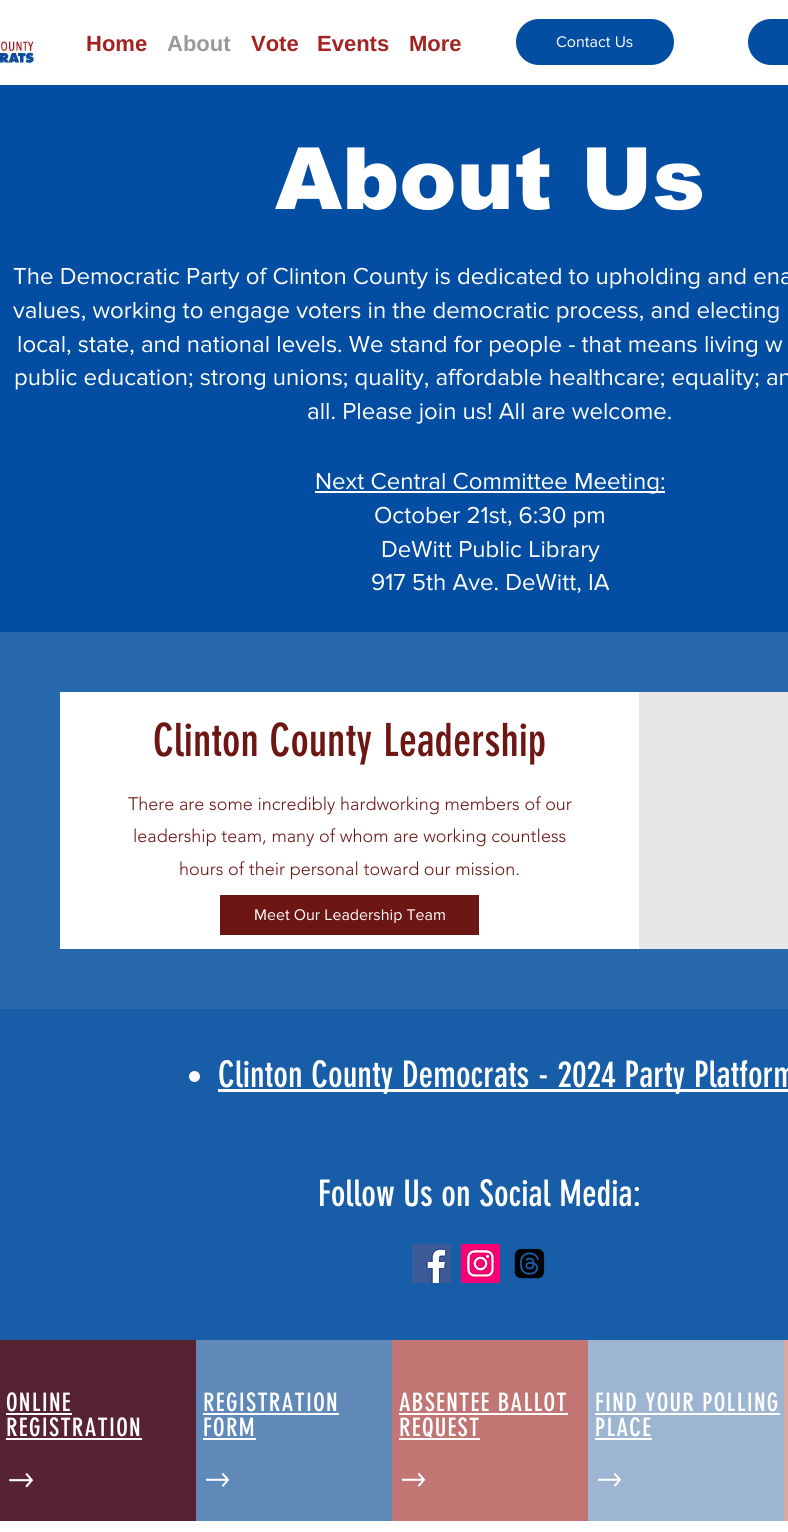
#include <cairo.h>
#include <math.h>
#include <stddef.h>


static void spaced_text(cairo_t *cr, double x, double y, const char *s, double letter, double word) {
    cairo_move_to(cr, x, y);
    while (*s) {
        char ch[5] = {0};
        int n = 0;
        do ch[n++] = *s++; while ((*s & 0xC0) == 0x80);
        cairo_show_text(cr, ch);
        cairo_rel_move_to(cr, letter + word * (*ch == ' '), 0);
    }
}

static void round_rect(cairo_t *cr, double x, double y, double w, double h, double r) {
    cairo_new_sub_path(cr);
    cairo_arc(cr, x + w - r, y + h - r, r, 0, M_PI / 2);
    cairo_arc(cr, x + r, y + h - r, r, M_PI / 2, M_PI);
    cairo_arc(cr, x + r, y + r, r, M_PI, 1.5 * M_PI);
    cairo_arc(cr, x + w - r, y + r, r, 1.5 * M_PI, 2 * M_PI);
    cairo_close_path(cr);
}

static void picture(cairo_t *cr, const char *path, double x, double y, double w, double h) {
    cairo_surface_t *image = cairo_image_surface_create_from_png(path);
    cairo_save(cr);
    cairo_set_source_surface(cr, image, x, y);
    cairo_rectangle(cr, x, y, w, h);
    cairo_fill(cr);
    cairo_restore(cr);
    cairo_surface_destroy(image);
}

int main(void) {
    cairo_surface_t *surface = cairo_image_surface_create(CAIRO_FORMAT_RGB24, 788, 1532);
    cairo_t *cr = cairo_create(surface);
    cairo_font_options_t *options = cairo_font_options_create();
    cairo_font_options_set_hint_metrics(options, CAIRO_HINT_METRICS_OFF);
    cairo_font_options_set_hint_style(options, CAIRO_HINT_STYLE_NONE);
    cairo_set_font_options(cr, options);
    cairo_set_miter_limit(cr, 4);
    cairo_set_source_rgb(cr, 0.012, 0.306, 0.635);
    cairo_paint(cr);
    cairo_set_source_rgb(cr, 1, 1, 1);
    cairo_rectangle(cr, 0, 0, 788, 85);
    cairo_fill(cr);
    picture(cr, "img1.png", 0, 38, 35, 28);
    cairo_select_font_face(cr, "Liberation Sans", CAIRO_FONT_SLANT_NORMAL, CAIRO_FONT_WEIGHT_BOLD);
    cairo_set_font_size(cr, 22);
    cairo_set_source_rgb(cr, 0.639, 0.137, 0.125);
    cairo_move_to(cr, 86, 51);
    cairo_show_text(cr, "Home");
    cairo_set_source_rgb(cr, 0.6, 0.6, 0.592);
    cairo_move_to(cr, 167, 51);
    cairo_show_text(cr, "About");
    cairo_set_source_rgb(cr, 0.639, 0.137, 0.125);
    cairo_move_to(cr, 251, 51);
    cairo_show_text(cr, "Vote");
    cairo_move_to(cr, 317, 51);
    cairo_show_text(cr, "Events");
    cairo_move_to(cr, 409, 51);
    cairo_show_text(cr, "More");
    cairo_set_source_rgb(cr, 0.012, 0.306, 0.635);
    round_rect(cr, 516, 19, 158, 46, 23);
    cairo_fill(cr);
    cairo_select_font_face(cr, "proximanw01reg", CAIRO_FONT_SLANT_NORMAL, CAIRO_FONT_WEIGHT_NORMAL);
    cairo_set_font_size(cr, 16);
    cairo_set_source_rgb(cr, 1, 1, 1);
    cairo_move_to(cr, 556, 47);
    cairo_show_text(cr, "Contact Us");
    cairo_set_source_rgb(cr, 0.012, 0.306, 0.635);
    round_rect(cr, 748, 19, 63, 46, 23);
    cairo_fill(cr);
    cairo_select_font_face(cr, "arial Black", CAIRO_FONT_SLANT_NORMAL, CAIRO_FONT_WEIGHT_NORMAL);
    cairo_set_font_size(cr, 86);
    cairo_set_source_rgb(cr, 1, 1, 1);
    cairo_move_to(cr, 275, 209);
    cairo_show_text(cr, "About Us");
    cairo_select_font_face(cr, "proximanw01reg", CAIRO_FONT_SLANT_NORMAL, CAIRO_FONT_WEIGHT_NORMAL);
    cairo_set_font_size(cr, 24);
    cairo_move_to(cr, 13, 284);
    cairo_show_text(cr, "The Democratic Party of Clinton County is dedicated to upholding and ena");
    cairo_move_to(cr, 13, 318);
    cairo_show_text(cr, "values, working to engage voters in the democratic process, and electing");
    cairo_move_to(cr, 17, 352);
    cairo_show_text(cr, "local, state, and national levels. We stand for people - that means living w");
    cairo_move_to(cr, 14, 385);
    cairo_show_text(cr, "public education; strong unions; quality, affordable healthcare; equality; an");
    cairo_move_to(cr, 307, 419);
    cairo_show_text(cr, "all. Please join us! All are welcome.");
    cairo_rectangle(cr, 315, 491, 350, 2);
    cairo_fill(cr);
    cairo_move_to(cr, 315, 489);
    cairo_show_text(cr, "Next Central Committee Meeting:");
    cairo_move_to(cr, 374, 523);
    cairo_show_text(cr, "October 21st, 6:30 pm");
    cairo_move_to(cr, 381, 557);
    cairo_show_text(cr, "DeWitt Public Library");
    cairo_move_to(cr, 371, 590);
    cairo_show_text(cr, "917 5th Ave. DeWitt, IA");
    cairo_set_source_rgb(cr, 0.157, 0.408, 0.678);
    cairo_rectangle(cr, 0, 632, 788, 377);
    cairo_fill(cr);
    cairo_set_source_rgb(cr, 1, 1, 1);
    cairo_rectangle(cr, 60, 692, 579, 257);
    cairo_fill(cr);
    cairo_select_font_face(cr, "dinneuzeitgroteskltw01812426", CAIRO_FONT_SLANT_NORMAL, CAIRO_FONT_WEIGHT_NORMAL);
    cairo_set_font_size(cr, 45);
    cairo_set_source_rgb(cr, 0.427, 0.09, 0.082);
    cairo_move_to(cr, 153, 756);
    cairo_show_text(cr, "Clinton County Leadership");
    cairo_select_font_face(cr, "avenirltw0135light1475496 Light", CAIRO_FONT_SLANT_NORMAL, CAIRO_FONT_WEIGHT_NORMAL);
    cairo_set_font_size(cr, 18);
    cairo_move_to(cr, 128, 810);
    cairo_show_text(cr, "There are some incredibly hardworking members of our");
    cairo_move_to(cr, 133, 842);
    cairo_show_text(cr, "leadership team, many of whom are working countless");
    cairo_move_to(cr, 179, 875);
    cairo_show_text(cr, "hours of their personal toward our mission.");
    cairo_rectangle(cr, 220, 895, 259, 40);
    cairo_fill(cr);
    cairo_select_font_face(cr, "proximanw01reg", CAIRO_FONT_SLANT_NORMAL, CAIRO_FONT_WEIGHT_NORMAL);
    cairo_set_font_size(cr, 16);
    cairo_set_source_rgb(cr, 1, 1, 1);
    cairo_move_to(cr, 254, 920);
    cairo_show_text(cr, "Meet Our Leadership Team");
    cairo_set_source_rgb(cr, 0.91, 0.902, 0.902);
    cairo_rectangle(cr, 639, 692, 149, 257);
    cairo_fill(cr);
    cairo_set_source_rgb(cr, 0.09, 0.365, 0.659);
    cairo_rectangle(cr, 0, 1009, 788, 331);
    cairo_fill(cr);
    cairo_set_source_rgb(cr, 0.98, 0.98, 0.98);
    cairo_arc(cr, 194.5, 1076.5, 5.5, 0, 2 * M_PI);
    cairo_fill(cr);
    cairo_rectangle(cr, 218, 1089, 570, 3);
    cairo_fill(cr);
    cairo_select_font_face(cr, "dinneuzeitgroteskltw01812426", CAIRO_FONT_SLANT_NORMAL, CAIRO_FONT_WEIGHT_NORMAL);
    cairo_set_font_size(cr, 36);
    cairo_set_source_rgb(cr, 1, 1, 1);
    cairo_move_to(cr, 218, 1087);
    cairo_show_text(cr, "Clinton County Democrats - 2024 Party Platform");
    cairo_move_to(cr, 318, 1206);
    cairo_show_text(cr, "Follow Us on Social Media:");
    picture(cr, "img2.png", 412, 1244, 39, 39);
    picture(cr, "img3.png", 461, 1244, 39, 39);
    picture(cr, "img4.png", 514, 1248, 31, 31);
    cairo_set_source_rgb(cr, 0.341, 0.137, 0.2);
    cairo_rectangle(cr, 0, 1340, 196, 181);
    cairo_fill(cr);
    cairo_set_font_size(cr, 25);
    cairo_set_source_rgb(cr, 1, 1, 1);
    spaced_text(cr, 6, 1411, "ONLINE", 1.25, 0);
    cairo_rectangle(cr, 6, 1413, 66, 2);
    cairo_fill(cr);
    spaced_text(cr, 6, 1436, "REGISTRATION", 1.25, 0);
    cairo_rectangle(cr, 6, 1438, 136, 2);
    cairo_fill(cr);
    picture(cr, "img5.png", 9, 1473, 25, 15);
    cairo_set_source_rgb(cr, 0.369, 0.537, 0.725);
    cairo_rectangle(cr, 196, 1340, 196, 181);
    cairo_fill(cr);
    cairo_set_source_rgb(cr, 1, 1, 1);
    spaced_text(cr, 203, 1411, "REGISTRATION", 1.25, 0);
    cairo_rectangle(cr, 203, 1413, 136, 2);
    cairo_fill(cr);
    spaced_text(cr, 203, 1436, "FORM", 1.25, 0);
    cairo_rectangle(cr, 203, 1438, 53, 2);
    cairo_fill(cr);
    picture(cr, "img6.png", 205, 1472, 25, 15);
    cairo_set_source_rgb(cr, 0.761, 0.463, 0.455);
    cairo_rectangle(cr, 392, 1340, 196, 181);
    cairo_fill(cr);
    cairo_set_source_rgb(cr, 1, 1, 1);
    spaced_text(cr, 399, 1411, "ABSENTEE BALLOT", 1.25, 0);
    cairo_rectangle(cr, 399, 1413, 169, 2);
    cairo_fill(cr);
    spaced_text(cr, 399, 1436, "REQUEST", 1.25, 0);
    cairo_rectangle(cr, 399, 1438, 81, 2);
    cairo_fill(cr);
    picture(cr, "img7.png", 401, 1472, 25, 15);
    cairo_set_source_rgb(cr, 0.616, 0.71, 0.816);
    cairo_rectangle(cr, 588, 1340, 196, 181);
    cairo_fill(cr);
    cairo_set_source_rgb(cr, 1, 1, 1);
    spaced_text(cr, 595, 1411, "FIND YOUR POLLING", 1.25, 0);
    cairo_rectangle(cr, 595, 1413, 185, 2);
    cairo_fill(cr);
    spaced_text(cr, 595, 1436, "PLACE", 1.25, 0);
    cairo_rectangle(cr, 595, 1438, 57, 2);
    cairo_fill(cr);
    picture(cr, "img8.png", 598, 1473, 24, 14);
    cairo_set_source_rgb(cr, 0.878, 0.651, 0.643);
    cairo_rectangle(cr, 784, 1340, 4, 181);
    cairo_fill(cr);
    cairo_set_source_rgb(cr, 1, 1, 1);
    cairo_rectangle(cr, 0, 1521, 788, 11);
    cairo_fill(cr);
    cairo_surface_write_to_png(surface, "page.png");
    cairo_font_options_destroy(options);
    cairo_destroy(cr);
    cairo_surface_destroy(surface);
    return 0;
}
